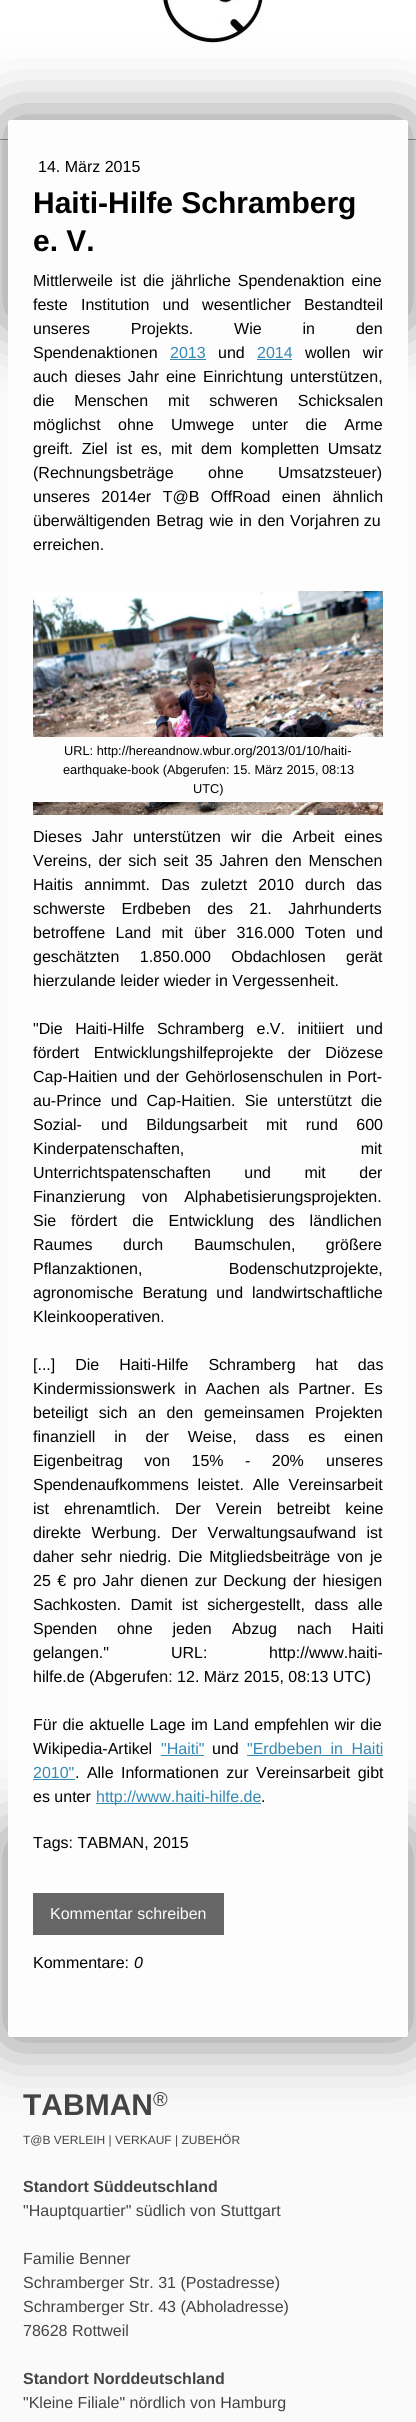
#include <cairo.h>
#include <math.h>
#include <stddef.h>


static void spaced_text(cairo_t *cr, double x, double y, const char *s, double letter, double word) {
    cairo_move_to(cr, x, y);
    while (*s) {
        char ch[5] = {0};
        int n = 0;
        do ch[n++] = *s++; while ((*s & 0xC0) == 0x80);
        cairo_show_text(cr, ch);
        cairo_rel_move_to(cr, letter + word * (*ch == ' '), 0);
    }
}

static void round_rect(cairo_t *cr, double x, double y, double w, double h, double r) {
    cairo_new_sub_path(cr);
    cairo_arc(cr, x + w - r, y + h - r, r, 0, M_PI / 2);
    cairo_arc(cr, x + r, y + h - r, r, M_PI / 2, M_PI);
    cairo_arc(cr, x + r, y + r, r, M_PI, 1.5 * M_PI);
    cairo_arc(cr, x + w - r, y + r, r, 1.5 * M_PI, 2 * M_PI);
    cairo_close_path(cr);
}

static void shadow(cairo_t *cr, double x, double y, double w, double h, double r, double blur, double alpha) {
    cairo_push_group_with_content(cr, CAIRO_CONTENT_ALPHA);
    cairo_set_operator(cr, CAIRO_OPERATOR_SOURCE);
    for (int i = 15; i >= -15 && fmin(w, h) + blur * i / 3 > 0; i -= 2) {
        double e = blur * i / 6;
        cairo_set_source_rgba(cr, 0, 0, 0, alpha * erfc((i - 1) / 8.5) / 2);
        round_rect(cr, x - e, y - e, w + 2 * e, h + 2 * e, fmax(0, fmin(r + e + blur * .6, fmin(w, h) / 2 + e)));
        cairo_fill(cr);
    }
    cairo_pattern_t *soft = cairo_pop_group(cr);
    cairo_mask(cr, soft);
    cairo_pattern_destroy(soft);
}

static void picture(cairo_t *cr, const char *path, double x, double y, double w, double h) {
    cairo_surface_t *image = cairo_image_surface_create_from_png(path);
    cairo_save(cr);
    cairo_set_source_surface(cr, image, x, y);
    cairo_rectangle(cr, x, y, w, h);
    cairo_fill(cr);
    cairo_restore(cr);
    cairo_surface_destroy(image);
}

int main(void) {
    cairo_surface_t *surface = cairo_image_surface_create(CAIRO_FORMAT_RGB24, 416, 2422);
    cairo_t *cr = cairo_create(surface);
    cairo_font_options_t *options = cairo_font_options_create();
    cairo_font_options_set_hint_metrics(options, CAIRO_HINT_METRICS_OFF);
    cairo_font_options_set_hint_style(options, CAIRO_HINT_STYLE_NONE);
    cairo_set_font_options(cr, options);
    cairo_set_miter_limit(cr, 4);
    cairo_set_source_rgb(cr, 1, 1, 1);
    cairo_paint(cr);
    picture(cr, "img1.png", 160, 0, 103, 43);
    cairo_set_source_rgb(cr, 0.98, 0.98, 0.98);
    cairo_rectangle(cr, 0, 140, 416, 2282);
    cairo_fill(cr);
    cairo_set_source_rgb(cr, 0.6, 0.6, 0.6);
    cairo_rectangle(cr, 0, 139, 416, 1);
    cairo_fill(cr);
    cairo_set_source_rgb(cr, 0.2, 0.2, 0.2);
    shadow(cr, 8, 120, 400, 200, 0, 34, 0.6);
    shadow(cr, 8, 1837, 400, 200, 0, 34, 0.6);
    cairo_set_source_rgb(cr, 0.992, 0.992, 0.992);
    round_rect(cr, 8, 120, 400, 1917, 2);
    cairo_fill(cr);
    cairo_select_font_face(cr, "Liberation Sans", CAIRO_FONT_SLANT_NORMAL, CAIRO_FONT_WEIGHT_NORMAL);
    cairo_set_font_size(cr, 16);
    cairo_set_source_rgb(cr, 0, 0, 0);
    cairo_move_to(cr, 38, 172);
    cairo_show_text(cr, "14. März 2015");
    cairo_select_font_face(cr, "Liberation Sans", CAIRO_FONT_SLANT_NORMAL, CAIRO_FONT_WEIGHT_BOLD);
    cairo_set_font_size(cr, 30);
    cairo_move_to(cr, 33, 213);
    cairo_show_text(cr, "Haiti-Hilfe Schramberg");
    cairo_move_to(cr, 33, 251);
    cairo_show_text(cr, "e. V.");
    cairo_select_font_face(cr, "Liberation Sans", CAIRO_FONT_SLANT_NORMAL, CAIRO_FONT_WEIGHT_NORMAL);
    cairo_set_font_size(cr, 16);
    spaced_text(cr, 33, 286, "Mittlerweile ist die jährliche Spendenaktion eine", 0, 2.5);
    cairo_move_to(cr, 33, 310);
    cairo_show_text(cr, "feste");
    spaced_text(cr, 81, 310, "Institution und wesentlicher Bestandteil", 0, 8.5);
    spaced_text(cr, 33, 334, "unseres Projekts. Wie in den", 0, 36.5);
    cairo_move_to(cr, 33, 358);
    cairo_show_text(cr, "Spendenaktionen");
    cairo_set_source_rgb(cr, 0.212, 0.537, 0.698);
    cairo_move_to(cr, 170, 358);
    cairo_show_text(cr, "2013");
    cairo_rectangle(cr, 170, 359, 36, 1);
    cairo_fill(cr);
    cairo_set_source_rgb(cr, 0, 0, 0);
    cairo_move_to(cr, 218, 358);
    cairo_show_text(cr, "und");
    cairo_set_source_rgb(cr, 0.212, 0.537, 0.698);
    cairo_move_to(cr, 257, 358);
    cairo_show_text(cr, "2014");
    cairo_rectangle(cr, 257, 359, 35, 1);
    cairo_fill(cr);
    cairo_set_source_rgb(cr, 0, 0, 0);
    spaced_text(cr, 305, 358, "wollen wir", 0, 8);
    spaced_text(cr, 33, 382, "auch dieses Jahr eine Einrichtung unterstützen,", 0, 2.5);
    spaced_text(cr, 33, 406, "die Menschen mit schweren Schicksalen", 0, 15.5);
    spaced_text(cr, 33, 430, "möglichst ohne Umwege unter die Arme", 0, 13);
    spaced_text(cr, 33, 454, "greift. Ziel ist es, mit dem kompletten Umsatz", 0, 4.25);
    spaced_text(cr, 33, 478, "(Rechnungsbeträge ohne Umsatzsteuer)", 0, 30);
    spaced_text(cr, 33, 502, "unseres 2014er T@B OffRoad einen ähnlich", 0, 7);
    spaced_text(cr, 33, 526, "überwältigenden Betrag wie in den", 0, 1.5);
    cairo_move_to(cr, 290, 526);
    cairo_show_text(cr, "Vorjahren zu");
    cairo_move_to(cr, 33, 550);
    cairo_show_text(cr, "erreichen.");
    picture(cr, "img2.png", 33, 591, 350, 224);
    cairo_set_source_rgb(cr, 0.992, 0.992, 0.992);
    cairo_rectangle(cr, 33, 737, 350, 65);
    cairo_fill(cr);
    cairo_set_font_size(cr, 12.8);
    cairo_set_source_rgb(cr, 0, 0, 0);
    cairo_move_to(cr, 64, 755);
    cairo_show_text(cr, "URL: http://hereandnow.wbur.org/2013/01/10/haiti-");
    cairo_move_to(cr, 63, 774);
    cairo_show_text(cr, "earthquake-book (Abgerufen: 15. März 2015, 08:13");
    cairo_move_to(cr, 193, 793);
    cairo_show_text(cr, "UTC)");
    cairo_set_font_size(cr, 16);
    spaced_text(cr, 33, 842, "Dieses Jahr unterstützen wir die Arbeit eines", 0, 5.5);
    spaced_text(cr, 33, 866, "Vereins, der sich seit 35 Jahren den Menschen", 0, 2.25);
    spaced_text(cr, 33, 890, "Haitis annimmt. Das zuletzt 2010 durch das", 0, 6.75);
    spaced_text(cr, 33, 914, "schwerste Erdbeben des 21. Jahrhunderts", 0, 12);
    spaced_text(cr, 33, 938, "betroffene Land mit", 0, 6);
    spaced_text(cr, 194, 938, "über 316.000 Toten und", 0, 6);
    spaced_text(cr, 33, 962, "geschätzten 1.850.000 Obdachlosen gerät", 0, 16);
    cairo_move_to(cr, 33, 986);
    cairo_show_text(cr, "hierzulande leider wieder in Vergessenheit.");
    spaced_text(cr, 33, 1034, "\"Die Haiti-Hilfe Schramberg e.V. initiiert und", 0, 8);
    spaced_text(cr, 33, 1058, "fördert Entwicklungshilfeprojekte der Diözese", 0, 10);
    spaced_text(cr, 33, 1082, "Cap-Haitien und der Gehörlosenschulen in Port-", 0, 1.5);
    spaced_text(cr, 33, 1106, "au-Prince und Cap-Haitien. Sie unterstützt die", 0, 4.75);
    cairo_move_to(cr, 33, 1130);
    cairo_show_text(cr, "Sozial-");
    spaced_text(cr, 101, 1130, "und Bildungsarbeit mit rund 600", 0, 14);
    spaced_text(cr, 33, 1154, "Kinderpatenschaften, mit", 0, 172);
    spaced_text(cr, 33, 1178, "Unterrichtspatenschaften und mit der", 0, 29);
    spaced_text(cr, 33, 1202, "Finanzierung von Alphabetisierungsprojekten.", 0, 12);
    spaced_text(cr, 33, 1226, "Sie fördert die Entwicklung des ländlichen", 0, 10.5);
    spaced_text(cr, 33, 1250, "Raumes durch", 0, 26);
    spaced_text(cr, 194, 1250, "Baumschulen, größere", 0, 26);
    spaced_text(cr, 33, 1274, "Pflanzaktionen, Bodenschutzprojekte,", 0, 82);
    spaced_text(cr, 33, 1298, "agronomische Beratung und landwirtschaftliche", 0, 4.5);
    cairo_move_to(cr, 33, 1322);
    cairo_show_text(cr, "Kleinkooperativen.");
    spaced_text(cr, 33, 1370, "[...] Die Haiti-Hilfe Schramberg hat das", 0, 15.5);
    spaced_text(cr, 33, 1394, "Kindermissionswerk in Aachen als Partner. Es", 0, 4.5);
    spaced_text(cr, 33, 1418, "beteiligt sich an den gemeinsamen Projekten", 0, 6.25);
    spaced_text(cr, 33, 1442, "finanziell in der Weise, dass es einen", 0, 14.5);
    spaced_text(cr, 33, 1466, "Eigenbeitrag von 15% - 20%", 0, 17);
    cairo_move_to(cr, 326, 1466);
    cairo_show_text(cr, "unseres");
    spaced_text(cr, 33, 1490, "Spendenaufkommens leistet. Alle Vereinsarbeit", 0, 4.5);
    spaced_text(cr, 33, 1514, "ist ehrenamtlich. Der Verein betreibt keine", 0, 10.5);
    spaced_text(cr, 33, 1538, "direkte Werbung. Der Verwaltungsaufwand ist", 0, 6);
    spaced_text(cr, 33, 1562, "daher sehr niedrig. Die Mitgliedsbeiträge von je", 0, 2.5);
    spaced_text(cr, 33, 1586, "25 €", 0, 2);
    spaced_text(cr, 73, 1586, "pro Jahr dienen zur Deckung der hiesigen", 0, 2);
    spaced_text(cr, 33, 1610, "Sachkosten. Damit ist sichergestellt, dass alle", 0, 5);
    spaced_text(cr, 33, 1634, "Spenden ohne jeden Abzug nach Haiti", 0, 15.5);
    cairo_move_to(cr, 33, 1658);
    cairo_show_text(cr, "gelangen.\"");
    cairo_move_to(cr, 171, 1658);
    cairo_show_text(cr, "URL:");
    cairo_move_to(cr, 269, 1658);
    cairo_show_text(cr, "http://www.haiti-");
    cairo_move_to(cr, 33, 1682);
    cairo_show_text(cr, "hilfe.de (Abgerufen: 12. März 2015, 08:13 UTC)");
    spaced_text(cr, 33, 1730, "Für die aktuelle Lage im Land empfehlen wir die", 0, 1);
    cairo_move_to(cr, 33, 1754);
    cairo_show_text(cr, "Wikipedia-Artikel");
    cairo_set_source_rgb(cr, 0.212, 0.537, 0.698);
    cairo_move_to(cr, 161, 1754);
    cairo_show_text(cr, "\"Haiti\"");
    cairo_rectangle(cr, 161, 1755, 43, 1);
    cairo_fill(cr);
    cairo_set_source_rgb(cr, 0, 0, 0);
    cairo_move_to(cr, 212, 1754);
    cairo_show_text(cr, "und");
    cairo_set_source_rgb(cr, 0.212, 0.537, 0.698);
    spaced_text(cr, 247, 1754, "\"Erdbeben in Haiti", 0, 4);
    cairo_rectangle(cr, 247, 1755, 136, 1);
    cairo_fill(cr);
    cairo_move_to(cr, 33, 1778);
    cairo_show_text(cr, "2010\"");
    cairo_rectangle(cr, 33, 1779, 42, 1);
    cairo_fill(cr);
    cairo_set_source_rgb(cr, 0, 0, 0);
    spaced_text(cr, 75, 1778, ". Alle Informationen zur Vereinsarbeit gibt", 0, 3);
    cairo_move_to(cr, 33, 1802);
    cairo_show_text(cr, "es unter");
    cairo_set_source_rgb(cr, 0.212, 0.537, 0.698);
    cairo_rectangle(cr, 96, 1803, 165, 1);
    cairo_fill(cr);
    cairo_move_to(cr, 96, 1802);
    cairo_show_text(cr, "http://www.haiti-hilfe.de");
    cairo_set_source_rgb(cr, 0, 0, 0);
    cairo_move_to(cr, 261, 1802);
    cairo_show_text(cr, ".");
    cairo_move_to(cr, 33, 1848);
    cairo_show_text(cr, "Tags: TABMAN, 2015");
    cairo_set_source_rgb(cr, 0.4, 0.4, 0.4);
    cairo_rectangle(cr, 33, 1893, 191, 42);
    cairo_fill(cr);
    cairo_set_source_rgb(cr, 0.992, 0.992, 0.992);
    cairo_move_to(cr, 50, 1919);
    cairo_show_text(cr, "Kommentar schreiben");
    cairo_set_source_rgb(cr, 0, 0, 0);
    cairo_move_to(cr, 33, 1968);
    cairo_show_text(cr, "Kommentare:");
    cairo_select_font_face(cr, "Liberation Sans", CAIRO_FONT_SLANT_ITALIC, CAIRO_FONT_WEIGHT_NORMAL);
    cairo_move_to(cr, 134, 1968);
    cairo_show_text(cr, "0");
    cairo_select_font_face(cr, "Liberation Sans", CAIRO_FONT_SLANT_NORMAL, CAIRO_FONT_WEIGHT_BOLD);
    cairo_set_font_size(cr, 30);
    cairo_set_source_rgb(cr, 0.267, 0.267, 0.267);
    cairo_move_to(cr, 23, 2115);
    cairo_show_text(cr, "TABMAN");
    cairo_select_font_face(cr, "Liberation Sans", CAIRO_FONT_SLANT_NORMAL, CAIRO_FONT_WEIGHT_NORMAL);
    cairo_set_font_size(cr, 20);
    cairo_move_to(cr, 153, 2106);
    cairo_show_text(cr, "®");
    cairo_set_font_size(cr, 12);
    cairo_move_to(cr, 23, 2144);
    cairo_show_text(cr, "T@B VERLEIH | VERKAUF | ZUBEHÖR");
    cairo_select_font_face(cr, "Liberation Sans", CAIRO_FONT_SLANT_NORMAL, CAIRO_FONT_WEIGHT_BOLD);
    cairo_set_font_size(cr, 16);
    cairo_move_to(cr, 23, 2192);
    cairo_show_text(cr, "Standort Süddeutschland");
    cairo_select_font_face(cr, "Liberation Sans", CAIRO_FONT_SLANT_NORMAL, CAIRO_FONT_WEIGHT_NORMAL);
    cairo_move_to(cr, 23, 2216);
    cairo_show_text(cr, "\"Hauptquartier\" südlich von Stuttgart");
    cairo_move_to(cr, 23, 2264);
    cairo_show_text(cr, "Familie Benner");
    cairo_move_to(cr, 23, 2288);
    cairo_show_text(cr, "Schramberger Str. 31 (Postadresse)");
    cairo_move_to(cr, 23, 2312);
    cairo_show_text(cr, "Schramberger Str. 43 (Abholadresse)");
    cairo_move_to(cr, 23, 2336);
    cairo_show_text(cr, "78628 Rottweil");
    cairo_select_font_face(cr, "Liberation Sans", CAIRO_FONT_SLANT_NORMAL, CAIRO_FONT_WEIGHT_BOLD);
    cairo_move_to(cr, 23, 2384);
    cairo_show_text(cr, "Standort Norddeutschland");
    cairo_select_font_face(cr, "Liberation Sans", CAIRO_FONT_SLANT_NORMAL, CAIRO_FONT_WEIGHT_NORMAL);
    cairo_move_to(cr, 23, 2408);
    cairo_show_text(cr, "\"Kleine Filiale\" nördlich von Hamburg");
    cairo_surface_write_to_png(surface, "page.png");
    cairo_font_options_destroy(options);
    cairo_destroy(cr);
    cairo_surface_destroy(surface);
    return 0;
}
